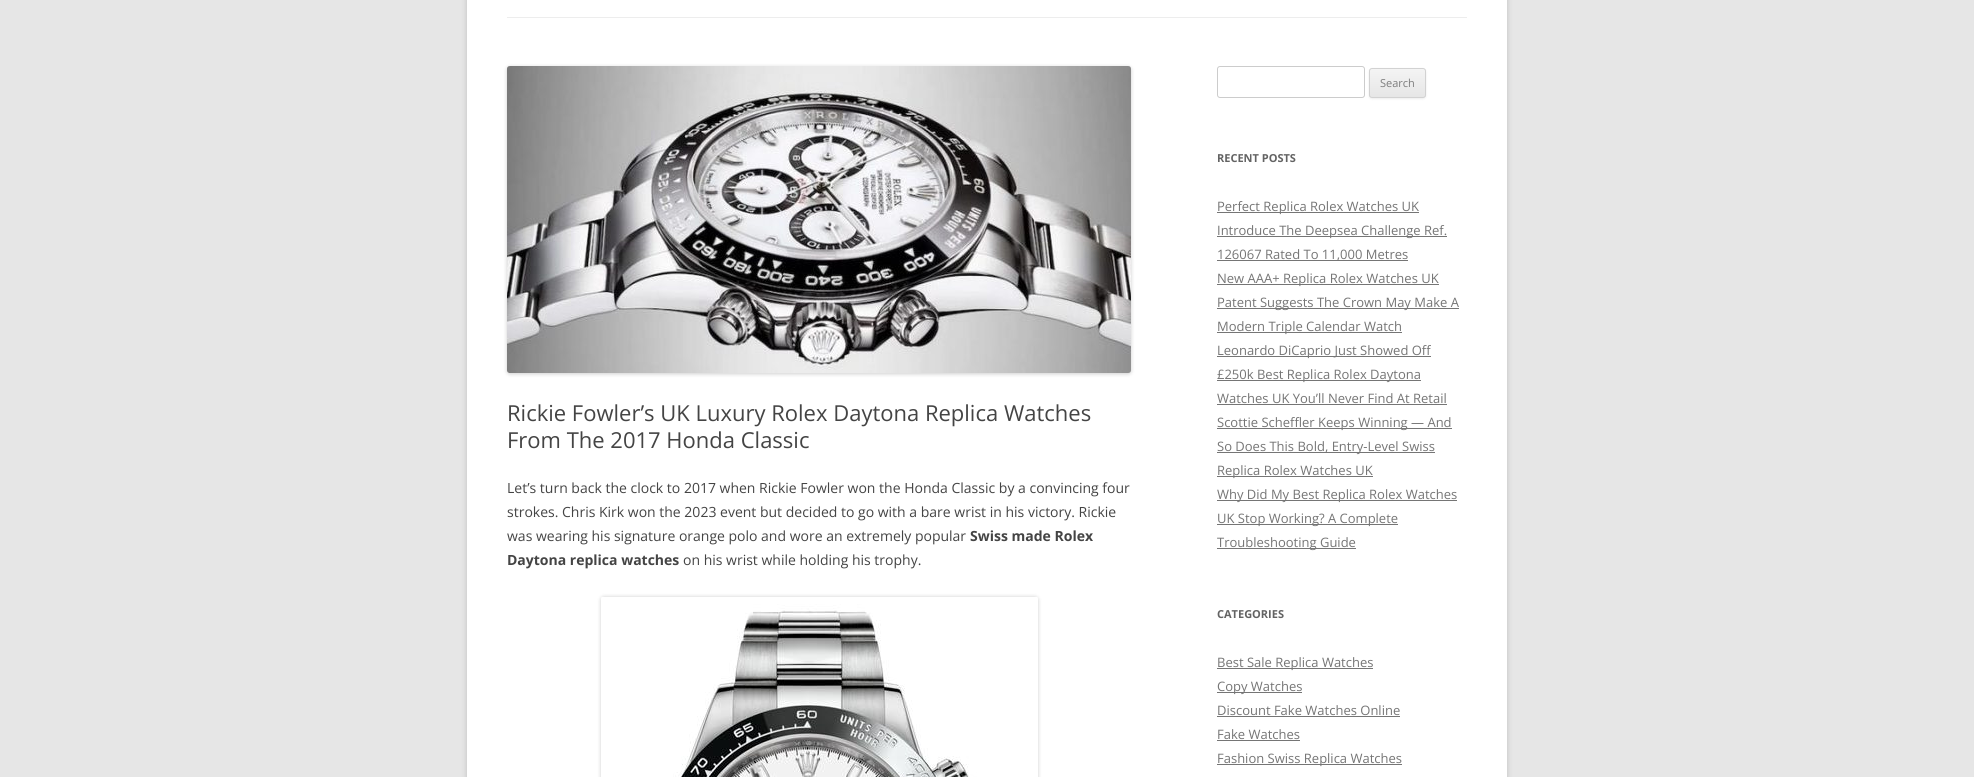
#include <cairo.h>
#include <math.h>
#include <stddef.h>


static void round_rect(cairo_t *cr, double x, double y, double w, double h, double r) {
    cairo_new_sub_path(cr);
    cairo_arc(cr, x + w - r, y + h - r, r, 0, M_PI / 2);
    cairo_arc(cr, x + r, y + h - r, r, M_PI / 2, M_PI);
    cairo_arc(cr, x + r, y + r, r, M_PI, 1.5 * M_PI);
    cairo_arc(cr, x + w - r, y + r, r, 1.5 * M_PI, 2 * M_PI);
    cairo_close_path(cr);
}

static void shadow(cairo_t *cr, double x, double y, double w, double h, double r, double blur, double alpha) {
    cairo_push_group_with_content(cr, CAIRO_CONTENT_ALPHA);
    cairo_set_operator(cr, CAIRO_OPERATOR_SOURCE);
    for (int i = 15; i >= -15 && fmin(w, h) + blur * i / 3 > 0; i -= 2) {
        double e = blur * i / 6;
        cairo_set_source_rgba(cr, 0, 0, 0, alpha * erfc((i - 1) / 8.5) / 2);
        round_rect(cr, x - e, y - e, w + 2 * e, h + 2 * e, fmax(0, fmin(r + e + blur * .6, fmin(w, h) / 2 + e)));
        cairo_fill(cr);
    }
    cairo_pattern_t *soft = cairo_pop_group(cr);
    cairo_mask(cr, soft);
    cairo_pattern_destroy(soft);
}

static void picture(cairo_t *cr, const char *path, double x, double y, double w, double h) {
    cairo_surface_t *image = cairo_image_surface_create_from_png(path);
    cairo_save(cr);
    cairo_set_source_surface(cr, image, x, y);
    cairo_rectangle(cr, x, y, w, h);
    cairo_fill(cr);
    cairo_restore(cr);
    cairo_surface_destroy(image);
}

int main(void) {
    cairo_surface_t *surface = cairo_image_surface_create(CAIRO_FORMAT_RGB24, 1974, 777);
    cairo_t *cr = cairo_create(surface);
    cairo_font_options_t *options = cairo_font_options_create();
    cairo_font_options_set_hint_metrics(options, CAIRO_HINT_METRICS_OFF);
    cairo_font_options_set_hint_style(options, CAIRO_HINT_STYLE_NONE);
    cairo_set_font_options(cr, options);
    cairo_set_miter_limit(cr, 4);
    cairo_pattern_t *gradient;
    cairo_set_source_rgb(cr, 0.902, 0.902, 0.902);
    cairo_paint(cr);
    cairo_set_source_rgb(cr, 0.392, 0.392, 0.392);
    shadow(cr, 467, -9, 1040, 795, 0, 3, 0.3);
    cairo_set_source_rgb(cr, 1, 1, 1);
    cairo_rectangle(cr, 467, 0, 1040, 777);
    cairo_fill(cr);
    cairo_set_source_rgb(cr, 0.929, 0.929, 0.929);
    cairo_rectangle(cr, 507, 17, 960, 1);
    cairo_fill(cr);
    cairo_set_source_rgb(cr, 0, 0, 0);
    shadow(cr, 507, 67, 624, 307, 3, 2, 0.2);
    picture(cr, "img1.png", 507, 66, 624, 307);
    cairo_select_font_face(cr, "Open Sans", CAIRO_FONT_SLANT_NORMAL, CAIRO_FONT_WEIGHT_NORMAL);
    cairo_set_font_size(cr, 22);
    cairo_set_source_rgb(cr, 0.267, 0.267, 0.267);
    cairo_move_to(cr, 507, 421);
    cairo_show_text(cr, "Rickie Fowler’s UK Luxury Rolex Daytona Replica Watches");
    cairo_move_to(cr, 507, 448);
    cairo_show_text(cr, "From The 2017 Honda Classic");
    cairo_set_font_size(cr, 14);
    cairo_move_to(cr, 507, 493);
    cairo_show_text(cr, "Let’s turn back the clock to 2017 when Rickie Fowler won the Honda Classic by a convincing four");
    cairo_move_to(cr, 507, 517);
    cairo_show_text(cr, "strokes. Chris Kirk won the 2023 event but decided to go with a bare wrist in his victory. Rickie");
    cairo_move_to(cr, 507, 541);
    cairo_show_text(cr, "was wearing his signature orange polo and wore an extremely popular");
    cairo_select_font_face(cr, "Open Sans", CAIRO_FONT_SLANT_NORMAL, CAIRO_FONT_WEIGHT_BOLD);
    cairo_move_to(cr, 970, 541);
    cairo_show_text(cr, "Swiss made Rolex");
    cairo_move_to(cr, 507, 565);
    cairo_show_text(cr, "Daytona replica watches");
    cairo_select_font_face(cr, "Open Sans", CAIRO_FONT_SLANT_NORMAL, CAIRO_FONT_WEIGHT_NORMAL);
    cairo_move_to(cr, 683, 565);
    cairo_show_text(cr, "on his wrist while holding his trophy.");
    cairo_set_source_rgb(cr, 0, 0, 0);
    shadow(cr, 601, 597, 437, 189, 3, 2, 0.2);
    picture(cr, "img2.png", 601, 597, 437, 180);
    round_rect(cr, 1217.5, 66.5, 147, 31, 2.5);
    cairo_set_source_rgb(cr, 0.8, 0.8, 0.8);
    cairo_set_line_width(cr, 1);
    cairo_stroke(cr);
    cairo_set_source_rgb(cr, 0.251, 0.251, 0.251);
    shadow(cr, 1369, 69, 57, 30, 3, 1, 0.1);
    cairo_save(cr);
    round_rect(cr, 1369, 68, 57, 30, 3);
    cairo_clip(cr);
    gradient = cairo_pattern_create_linear(1398, 69, 1398, 97);
    cairo_pattern_add_color_stop_rgba(gradient, 0, 0.957, 0.957, 0.957, 1);
    cairo_pattern_add_color_stop_rgba(gradient, 1, 0.902, 0.902, 0.902, 1);
    cairo_set_source(cr, gradient);
    cairo_pattern_destroy(gradient);
    cairo_rectangle(cr, 1369, 69, 57, 28);
    cairo_fill(cr);
    cairo_restore(cr);
    round_rect(cr, 1369.5, 68.5, 56, 29, 2.5);
    cairo_set_source_rgb(cr, 0.824, 0.824, 0.824);
    cairo_stroke(cr);
    cairo_set_font_size(cr, 11);
    cairo_set_source_rgb(cr, 0.486, 0.486, 0.486);
    cairo_move_to(cr, 1380, 87);
    cairo_show_text(cr, "Search");
    cairo_select_font_face(cr, "Open Sans", CAIRO_FONT_SLANT_NORMAL, CAIRO_FONT_WEIGHT_BOLD);
    cairo_set_source_rgb(cr, 0.388, 0.388, 0.388);
    cairo_move_to(cr, 1217, 162);
    cairo_show_text(cr, "RECENT POSTS");
    cairo_set_source_rgb(cr, 0.459, 0.459, 0.459);
    cairo_rectangle(cr, 1217, 212, 202, 1);
    cairo_fill(cr);
    cairo_select_font_face(cr, "Open Sans", CAIRO_FONT_SLANT_NORMAL, CAIRO_FONT_WEIGHT_NORMAL);
    cairo_set_font_size(cr, 13);
    cairo_move_to(cr, 1217, 211);
    cairo_show_text(cr, "Perfect Replica Rolex Watches UK");
    cairo_rectangle(cr, 1217, 236, 230, 1);
    cairo_fill(cr);
    cairo_move_to(cr, 1217, 235);
    cairo_show_text(cr, "Introduce The Deepsea Challenge Ref.");
    cairo_rectangle(cr, 1217, 260, 191, 1);
    cairo_fill(cr);
    cairo_move_to(cr, 1217, 259);
    cairo_show_text(cr, "126067 Rated To 11,000 Metres");
    cairo_rectangle(cr, 1217, 284, 222, 1);
    cairo_fill(cr);
    cairo_move_to(cr, 1217, 283);
    cairo_show_text(cr, "New AAA+ Replica Rolex Watches UK");
    cairo_rectangle(cr, 1217, 308, 242, 1);
    cairo_fill(cr);
    cairo_move_to(cr, 1217, 307);
    cairo_show_text(cr, "Patent Suggests The Crown May Make A");
    cairo_rectangle(cr, 1217, 332, 185, 1);
    cairo_fill(cr);
    cairo_move_to(cr, 1217, 331);
    cairo_show_text(cr, "Modern Triple Calendar Watch");
    cairo_rectangle(cr, 1217, 356, 214, 1);
    cairo_fill(cr);
    cairo_move_to(cr, 1217, 355);
    cairo_show_text(cr, "Leonardo DiCaprio Just Showed Off");
    cairo_rectangle(cr, 1217, 380, 204, 1);
    cairo_fill(cr);
    cairo_move_to(cr, 1217, 379);
    cairo_show_text(cr, "£250k Best Replica Rolex Daytona");
    cairo_move_to(cr, 1217, 403);
    cairo_show_text(cr, "Watches UK You’ll Never Find At Retail");
    cairo_rectangle(cr, 1217, 404, 230, 1);
    cairo_fill(cr);
    cairo_rectangle(cr, 1217, 428, 235, 1);
    cairo_fill(cr);
    cairo_move_to(cr, 1217, 427);
    cairo_show_text(cr, "Scottie Scheffler Keeps Winning — And");
    cairo_rectangle(cr, 1217, 452, 218, 1);
    cairo_fill(cr);
    cairo_move_to(cr, 1217, 451);
    cairo_show_text(cr, "So Does This Bold, Entry-Level Swiss");
    cairo_rectangle(cr, 1217, 476, 156, 1);
    cairo_fill(cr);
    cairo_move_to(cr, 1217, 475);
    cairo_show_text(cr, "Replica Rolex Watches UK");
    cairo_rectangle(cr, 1217, 500, 240, 1);
    cairo_fill(cr);
    cairo_move_to(cr, 1217, 499);
    cairo_show_text(cr, "Why Did My Best Replica Rolex Watches");
    cairo_rectangle(cr, 1217, 524, 181, 1);
    cairo_fill(cr);
    cairo_move_to(cr, 1217, 523);
    cairo_show_text(cr, "UK Stop Working? A Complete");
    cairo_rectangle(cr, 1217, 548, 139, 1);
    cairo_fill(cr);
    cairo_move_to(cr, 1217, 547);
    cairo_show_text(cr, "Troubleshooting Guide");
    cairo_select_font_face(cr, "Open Sans", CAIRO_FONT_SLANT_NORMAL, CAIRO_FONT_WEIGHT_BOLD);
    cairo_set_font_size(cr, 11);
    cairo_set_source_rgb(cr, 0.388, 0.388, 0.388);
    cairo_move_to(cr, 1217, 618);
    cairo_show_text(cr, "CATEGORIES");
    cairo_set_source_rgb(cr, 0.459, 0.459, 0.459);
    cairo_rectangle(cr, 1217, 668, 156, 1);
    cairo_fill(cr);
    cairo_select_font_face(cr, "Open Sans", CAIRO_FONT_SLANT_NORMAL, CAIRO_FONT_WEIGHT_NORMAL);
    cairo_set_font_size(cr, 13);
    cairo_move_to(cr, 1217, 667);
    cairo_show_text(cr, "Best Sale Replica Watches");
    cairo_rectangle(cr, 1217, 692, 85, 1);
    cairo_fill(cr);
    cairo_move_to(cr, 1217, 691);
    cairo_show_text(cr, "Copy Watches");
    cairo_move_to(cr, 1217, 715);
    cairo_show_text(cr, "Discount Fake Watches Online");
    cairo_rectangle(cr, 1217, 716, 183, 1);
    cairo_fill(cr);
    cairo_move_to(cr, 1217, 739);
    cairo_show_text(cr, "Fake Watches");
    cairo_rectangle(cr, 1217, 740, 83, 1);
    cairo_fill(cr);
    cairo_rectangle(cr, 1217, 764, 185, 1);
    cairo_fill(cr);
    cairo_move_to(cr, 1217, 763);
    cairo_show_text(cr, "Fashion Swiss Replica Watches");
    cairo_surface_write_to_png(surface, "page.png");
    cairo_font_options_destroy(options);
    cairo_destroy(cr);
    cairo_surface_destroy(surface);
    return 0;
}
